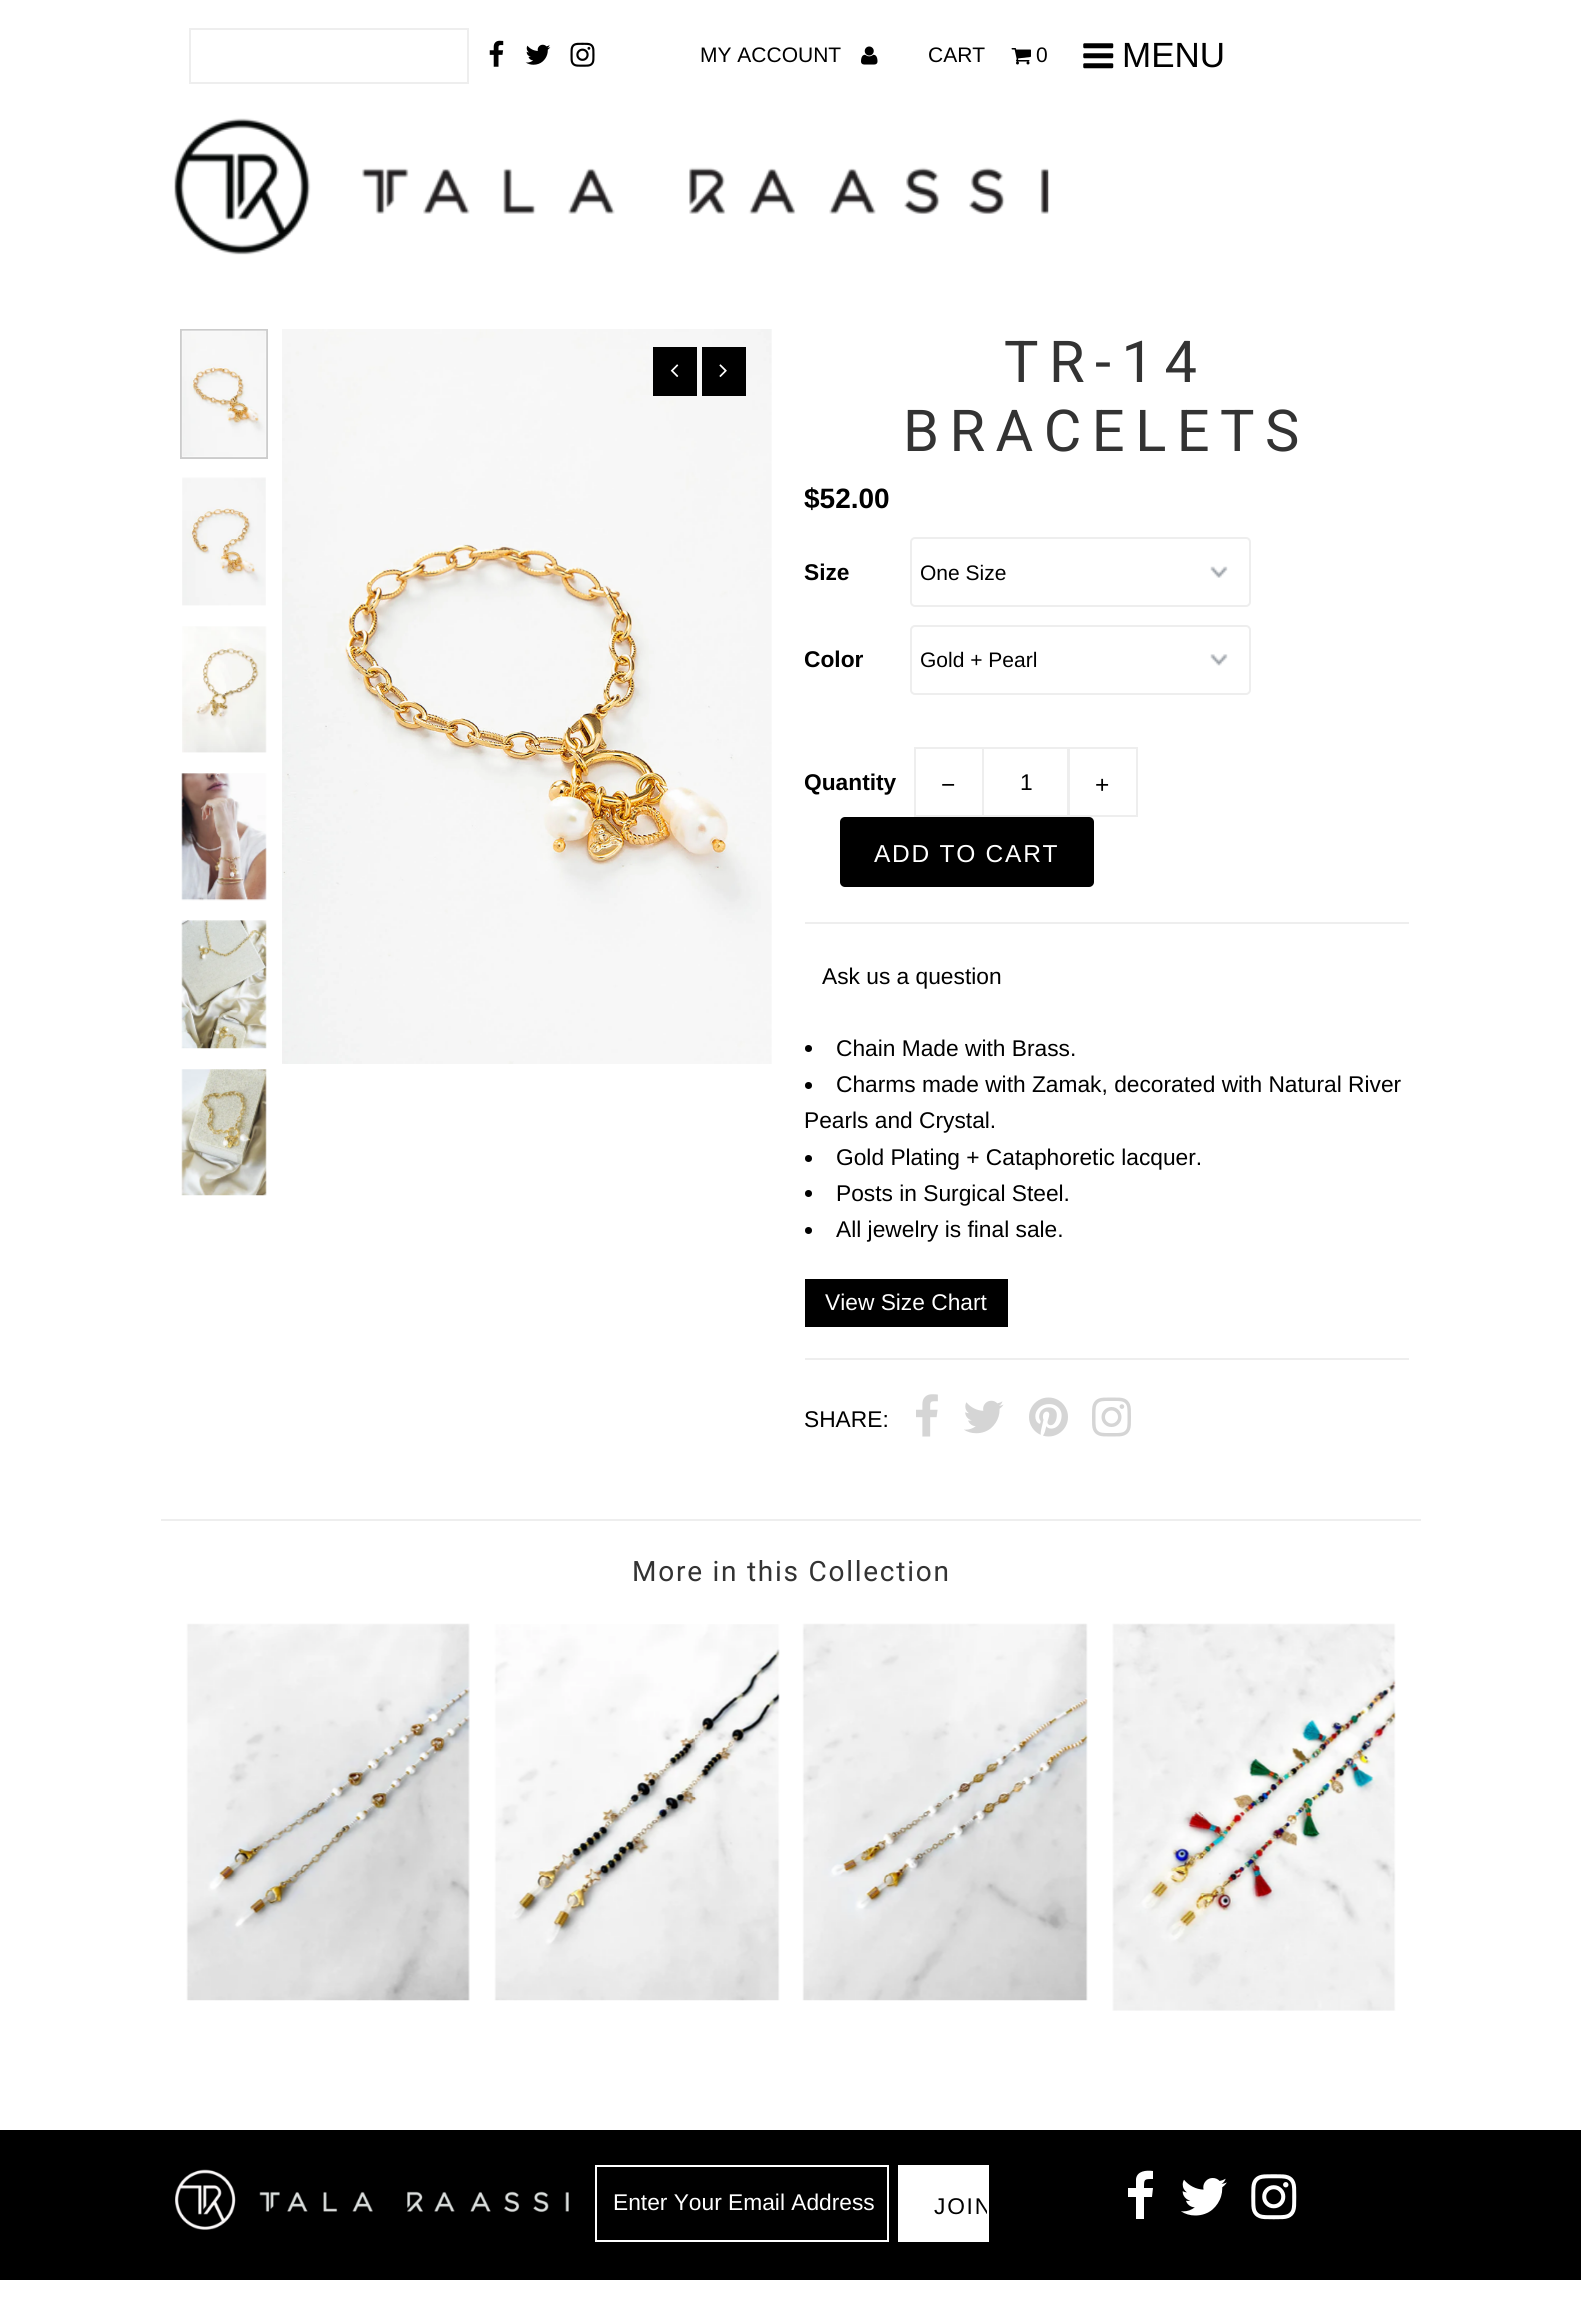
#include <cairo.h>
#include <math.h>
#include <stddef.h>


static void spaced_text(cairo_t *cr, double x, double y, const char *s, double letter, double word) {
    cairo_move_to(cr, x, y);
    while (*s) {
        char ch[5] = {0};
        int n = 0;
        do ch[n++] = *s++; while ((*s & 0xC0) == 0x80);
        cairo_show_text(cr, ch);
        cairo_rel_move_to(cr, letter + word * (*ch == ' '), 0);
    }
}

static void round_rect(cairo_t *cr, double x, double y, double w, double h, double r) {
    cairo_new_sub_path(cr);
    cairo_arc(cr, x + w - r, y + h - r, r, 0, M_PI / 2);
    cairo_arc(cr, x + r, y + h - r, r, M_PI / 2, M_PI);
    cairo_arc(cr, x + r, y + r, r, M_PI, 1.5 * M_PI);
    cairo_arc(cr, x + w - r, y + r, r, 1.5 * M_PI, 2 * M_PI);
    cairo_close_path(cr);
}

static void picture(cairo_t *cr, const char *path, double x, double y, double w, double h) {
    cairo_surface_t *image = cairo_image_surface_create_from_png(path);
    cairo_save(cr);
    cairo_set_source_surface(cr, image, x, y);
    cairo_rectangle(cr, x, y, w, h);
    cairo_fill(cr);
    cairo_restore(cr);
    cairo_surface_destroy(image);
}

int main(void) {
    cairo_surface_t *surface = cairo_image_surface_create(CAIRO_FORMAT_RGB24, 1581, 2305);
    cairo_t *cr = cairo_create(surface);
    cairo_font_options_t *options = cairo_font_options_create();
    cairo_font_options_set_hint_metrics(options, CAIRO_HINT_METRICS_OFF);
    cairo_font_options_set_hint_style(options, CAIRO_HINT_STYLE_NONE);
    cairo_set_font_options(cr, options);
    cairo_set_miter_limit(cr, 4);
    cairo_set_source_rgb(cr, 1, 1, 1);
    cairo_paint(cr);
    cairo_rectangle(cr, 190, 29, 278, 54);
    cairo_set_source_rgb(cr, 0.933, 0.933, 0.933);
    cairo_stroke(cr);
    picture(cr, "img1.png", 489, 40, 15, 27);
    picture(cr, "img2.png", 525, 44, 26, 21);
    picture(cr, "img3.png", 570, 42, 25, 25);
    cairo_select_font_face(cr, "Liberation Sans", CAIRO_FONT_SLANT_NORMAL, CAIRO_FONT_WEIGHT_NORMAL);
    cairo_set_font_size(cr, 21);
    cairo_set_source_rgb(cr, 0, 0, 0);
    cairo_move_to(cr, 700, 62);
    cairo_show_text(cr, "MY ACCOUNT");
    picture(cr, "img4.png", 861, 46, 17, 19);
    cairo_move_to(cr, 928, 62);
    cairo_show_text(cr, "CART");
    picture(cr, "img5.png", 1011, 48, 20, 17);
    cairo_move_to(cr, 1036, 62);
    cairo_show_text(cr, "0");
    picture(cr, "img6.png", 1083, 43, 31, 26);
    cairo_set_font_size(cr, 35);
    cairo_move_to(cr, 1122, 67);
    cairo_show_text(cr, "MENU");
    picture(cr, "img7.png", 174, 118, 875, 137);
    cairo_rectangle(cr, 181, 330, 86, 128);
    cairo_set_source_rgb(cr, 0.8, 0.8, 0.8);
    cairo_stroke(cr);
    picture(cr, "img8.png", 181, 330, 86, 128);
    picture(cr, "img9.png", 182, 477, 84, 129);
    picture(cr, "img10.png", 182, 626, 85, 127);
    picture(cr, "img11.png", 181, 773, 86, 128);
    picture(cr, "img12.png", 181, 920, 86, 129);
    picture(cr, "img13.png", 181, 1069, 86, 127);
    picture(cr, "img14.png", 282, 329, 490, 735);
    cairo_set_source_rgb(cr, 0, 0, 0);
    cairo_rectangle(cr, 653, 347, 44, 49);
    cairo_fill(cr);
    picture(cr, "img15.png", 670, 364, 9, 13);
    cairo_rectangle(cr, 702, 347, 44, 49);
    cairo_fill(cr);
    picture(cr, "img16.png", 719, 364, 8, 13);
    cairo_select_font_face(cr, "Roboto", CAIRO_FONT_SLANT_NORMAL, CAIRO_FONT_WEIGHT_NORMAL);
    cairo_set_font_size(cr, 57.75);
    cairo_set_source_rgb(cr, 0.2, 0.2, 0.2);
    spaced_text(cr, 1004, 382, "TR-14", 10.5, 0);
    spaced_text(cr, 903, 451, "BRACELETS", 10.5, 0);
    cairo_select_font_face(cr, "Liberation Sans", CAIRO_FONT_SLANT_NORMAL, CAIRO_FONT_WEIGHT_BOLD);
    cairo_set_font_size(cr, 28);
    cairo_set_source_rgb(cr, 0, 0, 0);
    cairo_move_to(cr, 804, 508);
    cairo_show_text(cr, "$52.00");
    cairo_set_source_rgb(cr, 0.933, 0.933, 0.933);
    cairo_rectangle(cr, 805, 922, 604, 2);
    cairo_fill(cr);
    cairo_set_font_size(cr, 22.75);
    cairo_set_source_rgb(cr, 0, 0, 0);
    cairo_move_to(cr, 804, 580);
    cairo_show_text(cr, "Size");
    picture(cr, "img17.png", 1210, 566, 18, 12);
    round_rect(cr, 911, 538, 339, 68, 4);
    cairo_set_source_rgb(cr, 0.933, 0.933, 0.933);
    cairo_stroke(cr);
    cairo_save(cr);
    cairo_rectangle(cr, 921, 560, 329, 25);
    cairo_clip(cr);
    cairo_select_font_face(cr, "Liberation Sans", CAIRO_FONT_SLANT_NORMAL, CAIRO_FONT_WEIGHT_NORMAL);
    cairo_set_font_size(cr, 21);
    cairo_set_source_rgb(cr, 0, 0, 0);
    cairo_move_to(cr, 920, 580);
    cairo_show_text(cr, "One Size");
    cairo_restore(cr);
    cairo_set_source_rgb(cr, 0, 0, 0);
    cairo_move_to(cr, 804, 667);
    cairo_show_text(cr, "Color");
    picture(cr, "img18.png", 1210, 654, 18, 12);
    round_rect(cr, 911, 626, 339, 68, 4);
    cairo_set_source_rgb(cr, 0.933, 0.933, 0.933);
    cairo_stroke(cr);
    cairo_save(cr);
    cairo_rectangle(cr, 921, 648, 329, 24);
    cairo_clip(cr);
    cairo_select_font_face(cr, "Liberation Sans", CAIRO_FONT_SLANT_NORMAL, CAIRO_FONT_WEIGHT_NORMAL);
    cairo_set_font_size(cr, 21);
    cairo_set_source_rgb(cr, 0, 0, 0);
    cairo_move_to(cr, 920, 667);
    cairo_show_text(cr, "Gold + Pearl");
    cairo_restore(cr);
    cairo_set_source_rgb(cr, 0, 0, 0);
    cairo_move_to(cr, 804, 790);
    cairo_show_text(cr, "Quantity");
    cairo_rectangle(cr, 915, 748, 68, 68);
    cairo_set_source_rgb(cr, 0.933, 0.933, 0.933);
    cairo_stroke(cr);
    cairo_select_font_face(cr, "Liberation Sans", CAIRO_FONT_SLANT_NORMAL, CAIRO_FONT_WEIGHT_NORMAL);
    cairo_set_font_size(cr, 24.5);
    cairo_set_source_rgb(cr, 0, 0, 0);
    spaced_text(cr, 941, 793, "−", 1.75, 0);
    cairo_rectangle(cr, 983, 748, 85, 68);
    cairo_set_source_rgb(cr, 0.933, 0.933, 0.933);
    cairo_stroke(cr);
    cairo_set_font_size(cr, 22.75);
    cairo_set_source_rgb(cr, 0, 0, 0);
    cairo_move_to(cr, 1020, 790);
    cairo_show_text(cr, "1");
    cairo_rectangle(cr, 1069, 748, 68, 68);
    cairo_set_source_rgb(cr, 0.933, 0.933, 0.933);
    cairo_stroke(cr);
    cairo_set_font_size(cr, 24.5);
    cairo_set_source_rgb(cr, 0, 0, 0);
    spaced_text(cr, 1095, 793, "+", 1.75, 0);
    round_rect(cr, 840, 817, 254, 70, 5);
    cairo_fill(cr);
    cairo_set_source_rgb(cr, 1, 1, 1);
    spaced_text(cr, 874, 862, "ADD TO CART", 1.75, 0);
    cairo_set_font_size(cr, 22.75);
    cairo_set_source_rgb(cr, 0, 0, 0);
    cairo_move_to(cr, 822, 984);
    cairo_show_text(cr, "Ask us a question");
    cairo_new_path(cr);
    cairo_arc(cr, 808.5, 1048.5, 3.5, 0, 2 * M_PI);
    cairo_fill(cr);
    cairo_move_to(cr, 836, 1056);
    cairo_show_text(cr, "Chain Made with Brass.");
    cairo_new_path(cr);
    cairo_arc(cr, 808.5, 1085.5, 3.5, 0, 2 * M_PI);
    cairo_fill(cr);
    cairo_move_to(cr, 836, 1092);
    cairo_show_text(cr, "Charms made with Zamak, decorated with Natural River");
    cairo_move_to(cr, 804, 1128);
    cairo_show_text(cr, "Pearls and Crystal.");
    cairo_new_path(cr);
    cairo_arc(cr, 808.5, 1158.5, 3.5, 0, 2 * M_PI);
    cairo_fill(cr);
    cairo_move_to(cr, 836, 1165);
    cairo_show_text(cr, "Gold Plating + Cataphoretic lacquer.");
    cairo_new_path(cr);
    cairo_arc(cr, 808.5, 1193.5, 3.5, 0, 2 * M_PI);
    cairo_fill(cr);
    cairo_move_to(cr, 836, 1201);
    cairo_show_text(cr, "Posts in Surgical Steel.");
    cairo_new_path(cr);
    cairo_arc(cr, 808.5, 1230.5, 3.5, 0, 2 * M_PI);
    cairo_fill(cr);
    cairo_move_to(cr, 836, 1237);
    cairo_show_text(cr, "All jewelry is final sale.");
    cairo_rectangle(cr, 805, 1279, 203, 48);
    cairo_fill(cr);
    cairo_set_source_rgb(cr, 1, 1, 1);
    cairo_move_to(cr, 825, 1310);
    cairo_show_text(cr, "View Size Chart");
    cairo_set_source_rgb(cr, 0.933, 0.933, 0.933);
    cairo_rectangle(cr, 805, 1358, 604, 2);
    cairo_fill(cr);
    cairo_set_source_rgb(cr, 0, 0, 0);
    cairo_move_to(cr, 804, 1427);
    cairo_show_text(cr, "SHARE:");
    picture(cr, "img19.png", 916, 1394, 22, 43);
    picture(cr, "img20.png", 964, 1400, 40, 34);
    picture(cr, "img21.png", 1029, 1397, 39, 40);
    picture(cr, "img22.png", 1092, 1397, 39, 40);
    cairo_set_source_rgb(cr, 0.933, 0.933, 0.933);
    cairo_rectangle(cr, 161, 1519, 1260, 2);
    cairo_fill(cr);
    cairo_select_font_face(cr, "Roboto", CAIRO_FONT_SLANT_NORMAL, CAIRO_FONT_WEIGHT_NORMAL);
    cairo_set_font_size(cr, 28);
    cairo_set_source_rgb(cr, 0.2, 0.2, 0.2);
    spaced_text(cr, 632, 1581, "More in this Collection", 1.75, 0);
    picture(cr, "img23.png", 186, 1623, 284, 378);
    picture(cr, "img24.png", 494, 1624, 286, 377);
    picture(cr, "img25.png", 802, 1623, 286, 378);
    picture(cr, "img26.png", 1112, 1623, 284, 388);
    cairo_set_source_rgb(cr, 0, 0, 0);
    cairo_rectangle(cr, 0, 2130, 1581, 150);
    cairo_fill(cr);
    picture(cr, "img27.png", 175, 2169, 394, 61);
    cairo_rectangle(cr, 596, 2166, 292, 75);
    cairo_set_source_rgb(cr, 1, 1, 1);
    cairo_stroke(cr);
    cairo_select_font_face(cr, "Liberation Sans", CAIRO_FONT_SLANT_NORMAL, CAIRO_FONT_WEIGHT_NORMAL);
    cairo_set_font_size(cr, 22.75);
    cairo_move_to(cr, 613, 2210);
    cairo_show_text(cr, "Enter Your Email Address");
    cairo_rectangle(cr, 898, 2165, 91, 77);
    cairo_fill(cr);
    cairo_save(cr);
    cairo_rectangle(cr, 900, 2167, 87, 73);
    cairo_clip(cr);
    cairo_set_source_rgb(cr, 0, 0, 0);
    spaced_text(cr, 934, 2214, "JOIN", 1.75, 0);
    cairo_restore(cr);
    cairo_new_path(cr);
    cairo_move_to(cr, 1153, 2171);
    cairo_line_to(cr, 1153, 2179);
    cairo_curve_to(cr, 1144, 2179, 1144, 2179, 1144, 2188);
    cairo_line_to(cr, 1153, 2188);
    cairo_line_to(cr, 1152, 2197);
    cairo_line_to(cr, 1144, 2197);
    cairo_line_to(cr, 1144, 2219);
    cairo_line_to(cr, 1136, 2219);
    cairo_line_to(cr, 1136, 2197);
    cairo_line_to(cr, 1128, 2197);
    cairo_line_to(cr, 1128, 2188);
    cairo_line_to(cr, 1136, 2188);
    cairo_line_to(cr, 1136, 2179);
    cairo_curve_to(cr, 1137, 2171, 1146, 2170, 1153, 2171);
    cairo_close_path(cr);
    cairo_fill(cr);
    picture(cr, "img28.png", 1181, 2178, 46, 38);
    picture(cr, "img29.png", 1251, 2174, 46, 46);
    cairo_surface_write_to_png(surface, "page.png");
    cairo_font_options_destroy(options);
    cairo_destroy(cr);
    cairo_surface_destroy(surface);
    return 0;
}
